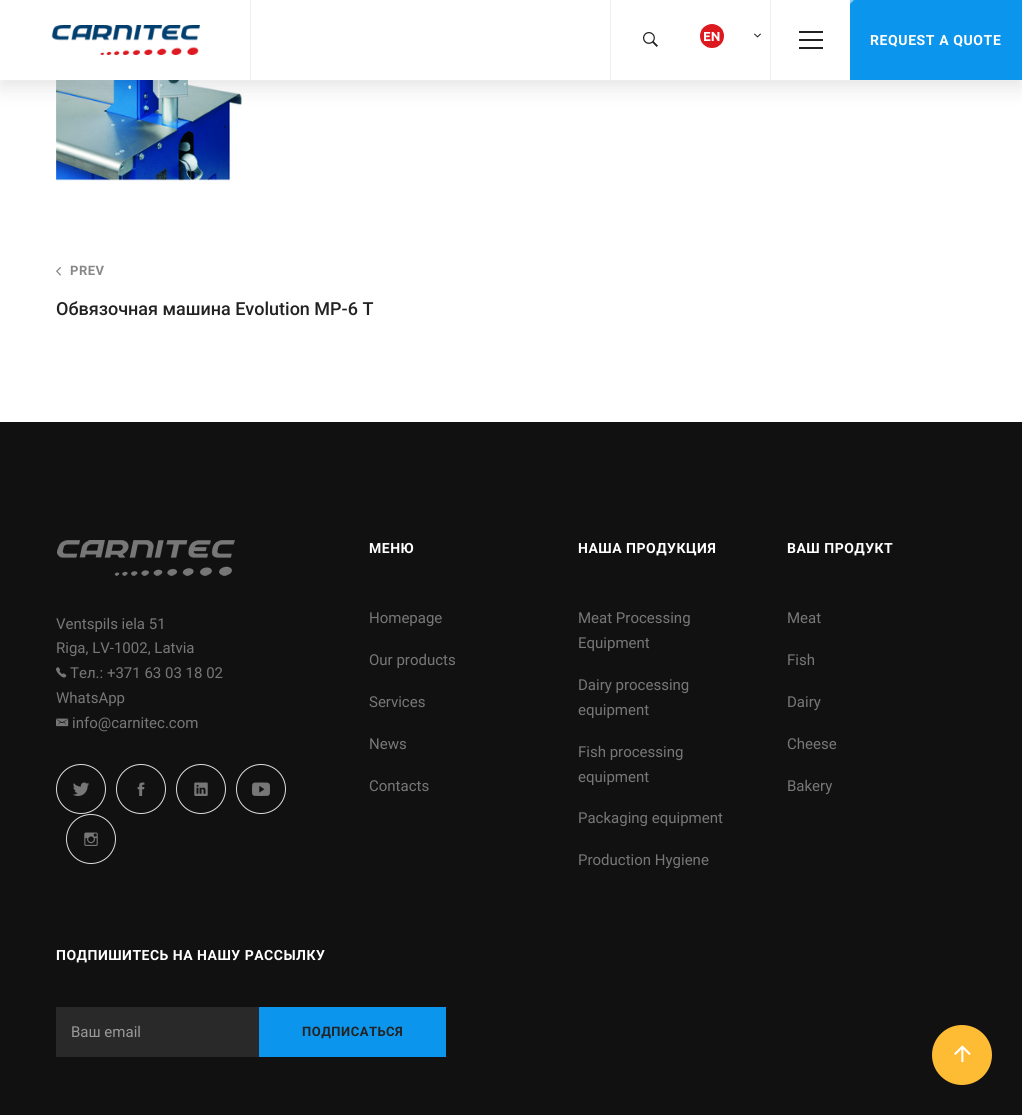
#include <cairo.h>
#include <math.h>
#include <stddef.h>


static void spaced_text(cairo_t *cr, double x, double y, const char *s, double letter, double word) {
    cairo_move_to(cr, x, y);
    while (*s) {
        char ch[5] = {0};
        int n = 0;
        do ch[n++] = *s++; while ((*s & 0xC0) == 0x80);
        cairo_show_text(cr, ch);
        cairo_rel_move_to(cr, letter + word * (*ch == ' '), 0);
    }
}

static void round_rect(cairo_t *cr, double x, double y, double w, double h, double r) {
    cairo_new_sub_path(cr);
    cairo_arc(cr, x + w - r, y + h - r, r, 0, M_PI / 2);
    cairo_arc(cr, x + r, y + h - r, r, M_PI / 2, M_PI);
    cairo_arc(cr, x + r, y + r, r, M_PI, 1.5 * M_PI);
    cairo_arc(cr, x + w - r, y + r, r, 1.5 * M_PI, 2 * M_PI);
    cairo_close_path(cr);
}

static void shadow(cairo_t *cr, double x, double y, double w, double h, double r, double blur, double alpha) {
    cairo_push_group_with_content(cr, CAIRO_CONTENT_ALPHA);
    cairo_set_operator(cr, CAIRO_OPERATOR_SOURCE);
    for (int i = 15; i >= -15 && fmin(w, h) + blur * i / 3 > 0; i -= 2) {
        double e = blur * i / 6;
        cairo_set_source_rgba(cr, 0, 0, 0, alpha * erfc((i - 1) / 8.5) / 2);
        round_rect(cr, x - e, y - e, w + 2 * e, h + 2 * e, fmax(0, fmin(r + e + blur * .6, fmin(w, h) / 2 + e)));
        cairo_fill(cr);
    }
    cairo_pattern_t *soft = cairo_pop_group(cr);
    cairo_mask(cr, soft);
    cairo_pattern_destroy(soft);
}

static void picture(cairo_t *cr, const char *path, double x, double y, double w, double h) {
    cairo_surface_t *image = cairo_image_surface_create_from_png(path);
    cairo_save(cr);
    cairo_set_source_surface(cr, image, x, y);
    cairo_rectangle(cr, x, y, w, h);
    cairo_fill(cr);
    cairo_restore(cr);
    cairo_surface_destroy(image);
}

int main(void) {
    cairo_surface_t *surface = cairo_image_surface_create(CAIRO_FORMAT_RGB24, 1022, 1115);
    cairo_t *cr = cairo_create(surface);
    cairo_font_options_t *options = cairo_font_options_create();
    cairo_font_options_set_hint_metrics(options, CAIRO_HINT_METRICS_OFF);
    cairo_font_options_set_hint_style(options, CAIRO_HINT_STYLE_NONE);
    cairo_set_font_options(cr, options);
    cairo_set_miter_limit(cr, 4);
    cairo_set_source_rgb(cr, 1, 1, 1);
    cairo_paint(cr);
    picture(cr, "img5.png", 56, 80, 186, 101);
    cairo_set_source_rgb(cr, 0, 0, 0);
    shadow(cr, 0, 8, 1022, 80, 0, 10, 0.1);
    cairo_set_source_rgb(cr, 1, 1, 1);
    cairo_rectangle(cr, 0, 0, 850, 80);
    cairo_fill(cr);
    cairo_set_source_rgb(cr, 0.933, 0.933, 0.933);
    cairo_rectangle(cr, 250, 0, 1, 80);
    cairo_fill(cr);
    picture(cr, "img1.png", 51, 25, 149, 30);
    cairo_rectangle(cr, 610, 0, 1, 80);
    cairo_fill(cr);
    picture(cr, "img2.png", 643, 32, 15, 15);
    picture(cr, "img3.png", 700, 24, 24, 24);
    picture(cr, "img4.png", 754, 33, 7, 5);
    cairo_rectangle(cr, 770, 0, 1, 80);
    cairo_fill(cr);
    cairo_set_source_rgb(cr, 0.133, 0.133, 0.133);
    cairo_rectangle(cr, 799, 39, 24, 2);
    cairo_fill(cr);
    cairo_rectangle(cr, 799, 31, 24, 2);
    cairo_fill(cr);
    cairo_rectangle(cr, 799, 47, 24, 2);
    cairo_fill(cr);
    cairo_set_source_rgb(cr, 0.047, 0.584, 0.925);
    cairo_rectangle(cr, 850, 0, 172, 80);
    cairo_fill(cr);
    cairo_save(cr);
    cairo_rectangle(cr, 850, 0, 172, 80);
    cairo_clip(cr);
    cairo_set_source_rgb(cr, 0.525, 0.792, 0.965);
    cairo_new_path(cr);
    cairo_move_to(cr, 805, 0);
    cairo_line_to(cr, 854, 0);
    cairo_line_to(cr, 774, 80);
    cairo_line_to(cr, 725, 80);
    cairo_close_path(cr);
    cairo_fill(cr);
    cairo_restore(cr);
    cairo_select_font_face(cr, "Roboto", CAIRO_FONT_SLANT_NORMAL, CAIRO_FONT_WEIGHT_BOLD);
    cairo_set_font_size(cr, 14);
    cairo_set_source_rgb(cr, 1, 1, 1);
    spaced_text(cr, 870, 45, "REQUEST A QUOTE", 0.6, 0);
    picture(cr, "img6.png", 56, 267, 5, 9);
    cairo_set_font_size(cr, 13);
    cairo_set_source_rgb(cr, 0.533, 0.533, 0.533);
    spaced_text(cr, 70, 275, "PREV", 0.5, 0);
    cairo_select_font_face(cr, "Roboto Medium", CAIRO_FONT_SLANT_NORMAL, CAIRO_FONT_WEIGHT_NORMAL);
    cairo_set_font_size(cr, 18);
    cairo_set_source_rgb(cr, 0.133, 0.133, 0.133);
    cairo_move_to(cr, 56, 315);
    cairo_show_text(cr, "Обвязочная машина Evolution MP-6 T");
    cairo_set_source_rgb(cr, 0.067, 0.067, 0.067);
    cairo_rectangle(cr, 0, 422, 1022, 693);
    cairo_fill(cr);
    picture(cr, "img7.png", 57, 540, 178, 36);
    cairo_select_font_face(cr, "Roboto", CAIRO_FONT_SLANT_NORMAL, CAIRO_FONT_WEIGHT_NORMAL);
    cairo_set_font_size(cr, 15);
    cairo_set_source_rgb(cr, 0.467, 0.467, 0.467);
    cairo_move_to(cr, 56, 629);
    cairo_show_text(cr, "Ventspils iela 51");
    cairo_move_to(cr, 56, 653);
    cairo_show_text(cr, "Riga, LV-1002, Latvia");
    picture(cr, "img8.png", 56, 667, 11, 11);
    cairo_move_to(cr, 70, 678);
    cairo_show_text(cr, "Тел.: +371 63 03 18 02");
    cairo_move_to(cr, 56, 703);
    cairo_show_text(cr, "WhatsApp");
    picture(cr, "img9.png", 56, 718, 13, 9);
    cairo_move_to(cr, 72, 728);
    cairo_show_text(cr, "info@carnitec.com");
    cairo_new_path(cr);
    cairo_arc(cr, 81, 789, 24.5, 0, 2 * M_PI);
    cairo_set_source_rgb(cr, 0.867, 0.867, 0.867);
    cairo_set_line_width(cr, 1);
    cairo_stroke(cr);
    picture(cr, "img10.png", 73, 782, 16, 14);
    cairo_arc(cr, 141, 789, 24.5, 0, 2 * M_PI);
    cairo_stroke(cr);
    picture(cr, "img11.png", 137, 782, 8, 14);
    cairo_arc(cr, 201, 789, 24.5, 0, 2 * M_PI);
    cairo_stroke(cr);
    picture(cr, "img12.png", 194, 782, 14, 14);
    cairo_arc(cr, 261, 789, 24.5, 0, 2 * M_PI);
    cairo_stroke(cr);
    picture(cr, "img13.png", 252, 782, 18, 14);
    cairo_arc(cr, 91, 839, 24.5, 0, 2 * M_PI);
    cairo_stroke(cr);
    picture(cr, "img14.png", 84, 832, 14, 14);
    cairo_select_font_face(cr, "Roboto", CAIRO_FONT_SLANT_NORMAL, CAIRO_FONT_WEIGHT_BOLD);
    cairo_set_font_size(cr, 14);
    cairo_set_source_rgb(cr, 1, 1, 1);
    spaced_text(cr, 369, 553, "МЕНЮ", 0.5, 0);
    cairo_select_font_face(cr, "Roboto", CAIRO_FONT_SLANT_NORMAL, CAIRO_FONT_WEIGHT_NORMAL);
    cairo_set_font_size(cr, 15);
    cairo_set_source_rgb(cr, 0.467, 0.467, 0.467);
    cairo_move_to(cr, 369, 623);
    cairo_show_text(cr, "Homepage");
    cairo_move_to(cr, 369, 665);
    cairo_show_text(cr, "Our products");
    cairo_move_to(cr, 369, 707);
    cairo_show_text(cr, "Services");
    cairo_move_to(cr, 369, 749);
    cairo_show_text(cr, "News");
    cairo_move_to(cr, 369, 791);
    cairo_show_text(cr, "Contacts");
    cairo_select_font_face(cr, "Roboto", CAIRO_FONT_SLANT_NORMAL, CAIRO_FONT_WEIGHT_BOLD);
    cairo_set_font_size(cr, 14);
    cairo_set_source_rgb(cr, 1, 1, 1);
    spaced_text(cr, 578, 553, "НАША ПРОДУКЦИЯ", 0.5, 0);
    cairo_select_font_face(cr, "Roboto", CAIRO_FONT_SLANT_NORMAL, CAIRO_FONT_WEIGHT_NORMAL);
    cairo_set_font_size(cr, 15);
    cairo_set_source_rgb(cr, 0.467, 0.467, 0.467);
    cairo_move_to(cr, 578, 623);
    cairo_show_text(cr, "Meat Processing");
    cairo_move_to(cr, 578, 648);
    cairo_show_text(cr, "Equipment");
    cairo_move_to(cr, 578, 690);
    cairo_show_text(cr, "Dairy processing");
    cairo_move_to(cr, 578, 715);
    cairo_show_text(cr, "equipment");
    cairo_move_to(cr, 578, 757);
    cairo_show_text(cr, "Fish processing");
    cairo_move_to(cr, 578, 782);
    cairo_show_text(cr, "equipment");
    cairo_move_to(cr, 578, 823);
    cairo_show_text(cr, "Packaging equipment");
    cairo_move_to(cr, 578, 865);
    cairo_show_text(cr, "Production Hygiene");
    cairo_select_font_face(cr, "Roboto", CAIRO_FONT_SLANT_NORMAL, CAIRO_FONT_WEIGHT_BOLD);
    cairo_set_font_size(cr, 14);
    cairo_set_source_rgb(cr, 1, 1, 1);
    spaced_text(cr, 787, 553, "ВАШ ПРОДУКТ", 0.5, 0);
    cairo_select_font_face(cr, "Roboto", CAIRO_FONT_SLANT_NORMAL, CAIRO_FONT_WEIGHT_NORMAL);
    cairo_set_font_size(cr, 15);
    cairo_set_source_rgb(cr, 0.467, 0.467, 0.467);
    cairo_move_to(cr, 787, 623);
    cairo_show_text(cr, "Meat");
    cairo_move_to(cr, 787, 665);
    cairo_show_text(cr, "Fish");
    cairo_move_to(cr, 787, 707);
    cairo_show_text(cr, "Dairy");
    cairo_move_to(cr, 787, 749);
    cairo_show_text(cr, "Cheese");
    cairo_move_to(cr, 787, 791);
    cairo_show_text(cr, "Bakery");
    cairo_select_font_face(cr, "Roboto", CAIRO_FONT_SLANT_NORMAL, CAIRO_FONT_WEIGHT_BOLD);
    cairo_set_font_size(cr, 14);
    cairo_set_source_rgb(cr, 1, 1, 1);
    spaced_text(cr, 56, 960, "ПОДПИШИТЕСЬ НА НАШУ РАССЫЛКУ", 0.5, 0);
    cairo_set_source_rgb(cr, 0.161, 0.161, 0.161);
    cairo_rectangle(cr, 56, 1007, 203, 50);
    cairo_fill(cr);
    cairo_select_font_face(cr, "Roboto", CAIRO_FONT_SLANT_NORMAL, CAIRO_FONT_WEIGHT_NORMAL);
    cairo_set_font_size(cr, 15);
    cairo_set_source_rgb(cr, 0.6, 0.6, 0.6);
    cairo_move_to(cr, 71, 1037);
    cairo_show_text(cr, "Ваш email");
    cairo_set_source_rgb(cr, 0.047, 0.584, 0.925);
    cairo_rectangle(cr, 259, 1007, 187, 50);
    cairo_fill(cr);
    cairo_select_font_face(cr, "Roboto", CAIRO_FONT_SLANT_NORMAL, CAIRO_FONT_WEIGHT_BOLD);
    cairo_set_font_size(cr, 13);
    cairo_set_source_rgb(cr, 0.133, 0.133, 0.133);
    spaced_text(cr, 302, 1036, "ПОДПИСАТЬСЯ", 0.5, 0);
    cairo_set_source_rgb(cr, 0.996, 0.737, 0.208);
    cairo_new_path(cr);
    cairo_arc(cr, 962, 1055, 30, 0, 2 * M_PI);
    cairo_fill(cr);
    picture(cr, "img15.png", 954, 1045, 17, 17);
    cairo_surface_write_to_png(surface, "page.png");
    cairo_font_options_destroy(options);
    cairo_destroy(cr);
    cairo_surface_destroy(surface);
    return 0;
}
